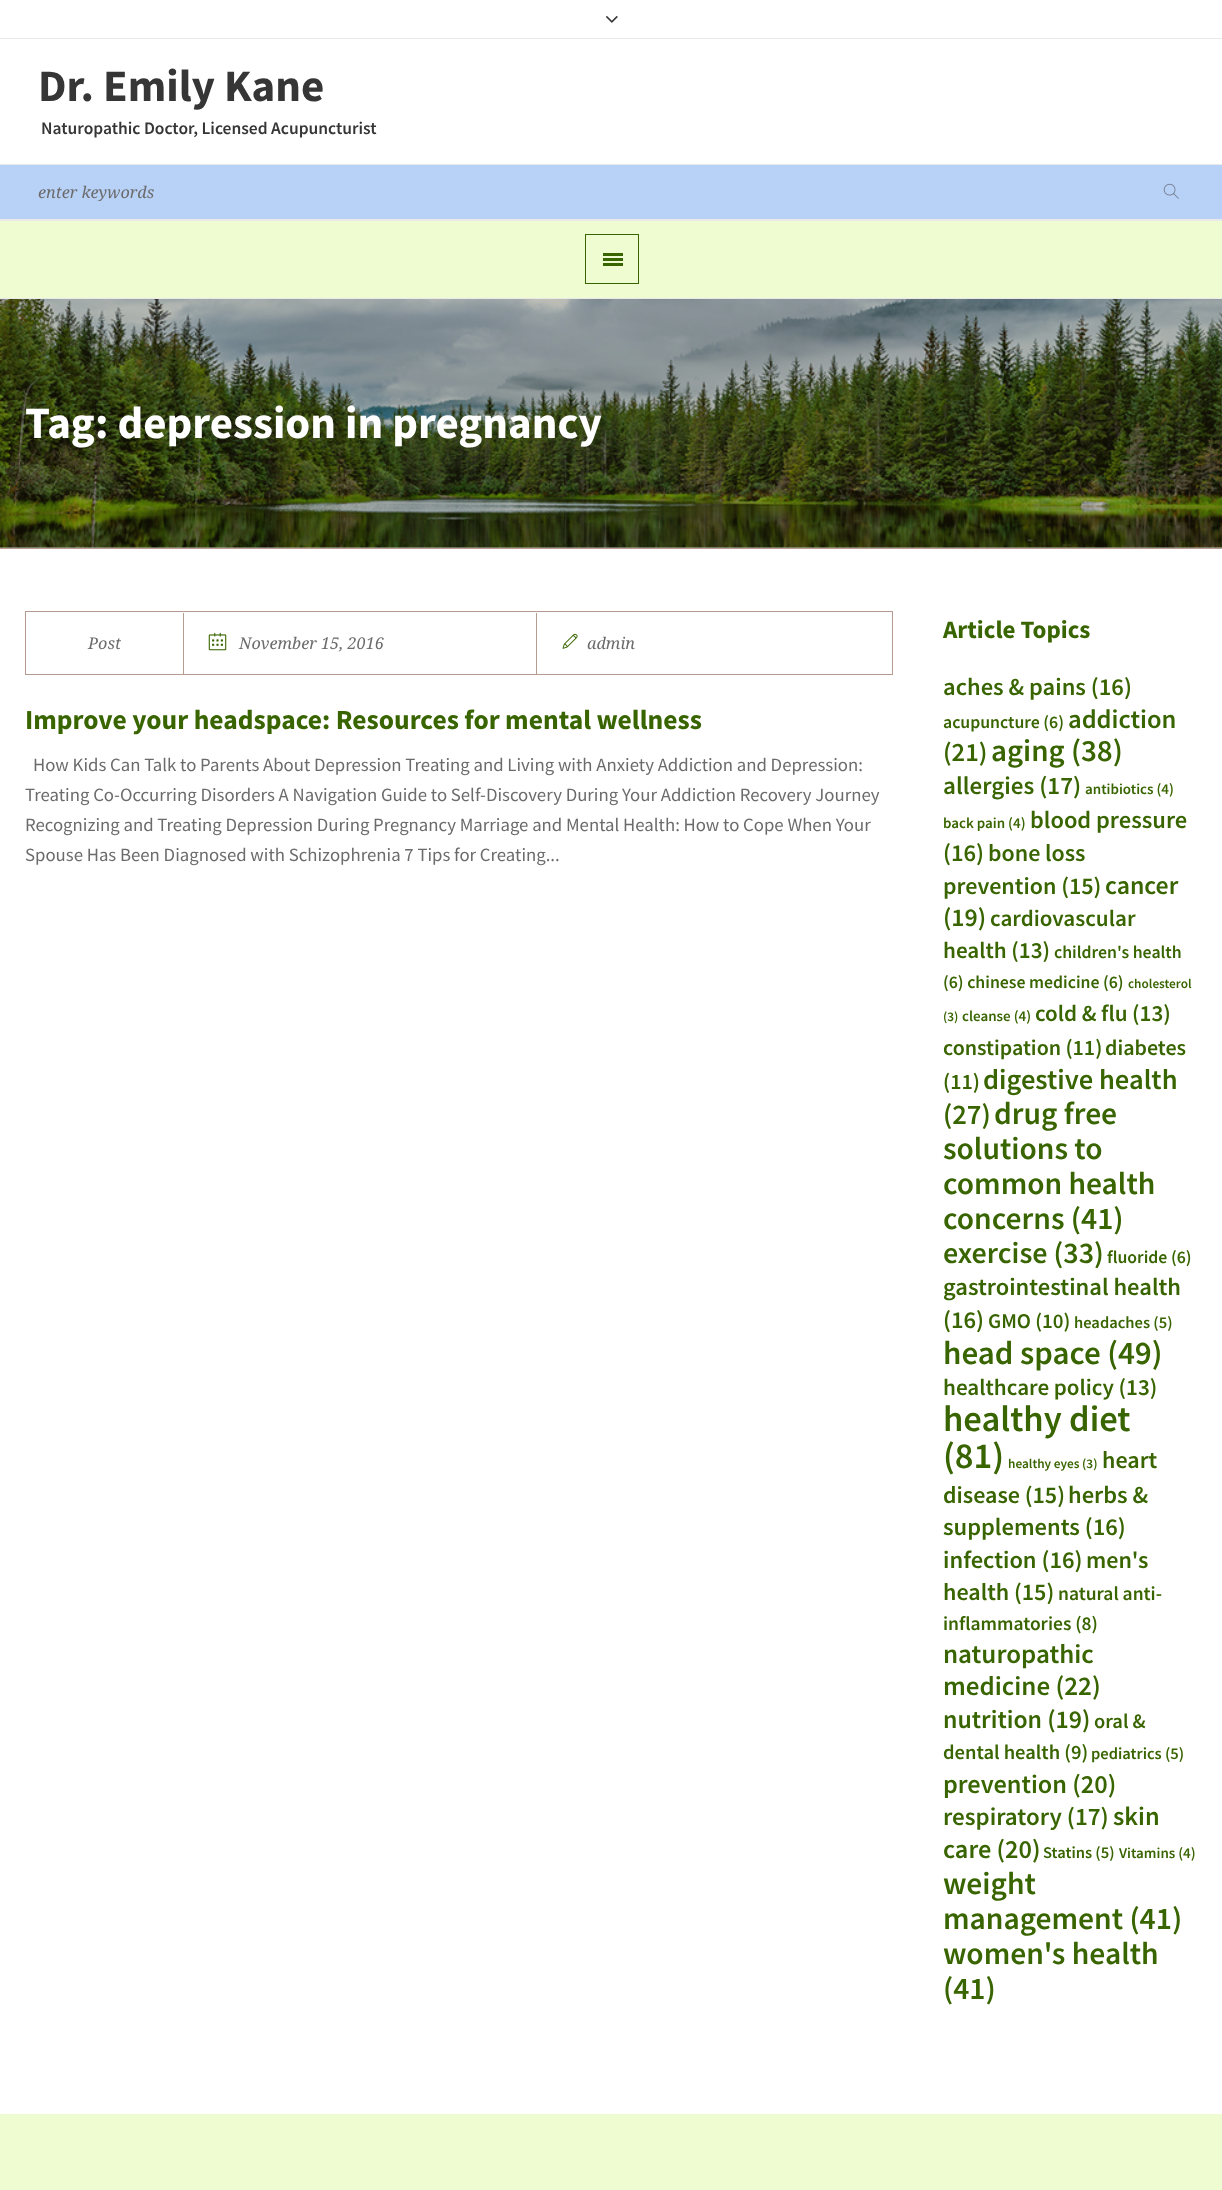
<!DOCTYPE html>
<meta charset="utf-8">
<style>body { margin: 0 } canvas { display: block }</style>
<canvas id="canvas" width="1222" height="2190"></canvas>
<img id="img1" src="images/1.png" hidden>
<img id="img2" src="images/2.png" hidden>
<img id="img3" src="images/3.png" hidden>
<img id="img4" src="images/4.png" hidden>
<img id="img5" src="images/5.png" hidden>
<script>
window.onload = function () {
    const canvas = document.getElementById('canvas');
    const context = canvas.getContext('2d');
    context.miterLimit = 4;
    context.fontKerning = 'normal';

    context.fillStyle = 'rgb(255, 255, 255)';
    context.fillRect(0, 0, 1222, 2190);
    context.fillStyle = 'rgb(233, 233, 233)';
    context.fillRect(0, 38, 1222, 1);
    context.drawImage(document.getElementById('img1'), 606, 16, 12, 7);
    context.fillRect(0, 219, 1222, 2);
    context.fillStyle = 'rgb(184, 209, 247)';
    context.fillRect(0, 165, 1222, 54);
    context.fillStyle = 'rgb(233, 233, 233)';
    context.fillRect(0, 164, 1222, 1);
    context.drawImage(document.getElementById('img2'), 1163, 183, 16, 16);
    context.fillStyle = 'rgb(239, 251, 208)';
    context.fillRect(0, 221, 1222, 77);
    context.fillStyle = 'rgb(233, 233, 233)';
    context.fillRect(0, 298, 1222, 1);
    context.strokeStyle = 'rgb(57, 101, 0)';
    context.strokeRect(585.5, 234.5, 53, 49);
    context.fillStyle = 'rgb(57, 101, 0)';
    context.fillRect(603, 253, 20, 3);
    context.fillRect(603, 263, 20, 3);
    context.fillRect(603, 258, 20, 3);
    context.fillStyle = 'rgb(193, 191, 181)';
    context.fillRect(0, 547, 1222, 1);
    context.drawImage(document.getElementById('img3'), 0, 299, 1222, 249);
    context.fillStyle = 'rgb(184, 155, 144)';
    context.fillRect(0, 548, 1222, 1);
    context.strokeStyle = 'rgb(184, 155, 144)';
    context.strokeRect(25.5, 611.5, 867, 63);
    context.fillRect(183, 613, 1, 61);
    context.fillRect(536, 613, 1, 61);
    context.drawImage(document.getElementById('img4'), 208, 632, 19, 19);
    context.drawImage(document.getElementById('img5'), 562, 633, 16, 16);
    context.fillStyle = 'rgb(239, 251, 208)';
    context.fillRect(0, 2114, 1222, 76);
    context.font = 'bold 45px Source Sans Pro';
    context.fillStyle = 'rgb(54, 54, 54)';
    context.fillText('Dr. Emily Kane', 38, 101);
    context.font = '600 17.5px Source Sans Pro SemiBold';
    context.fillText('Naturopathic Doctor, Licensed Acupuncturist', 41, 134);
    context.save();
    context.beginPath();
    context.rect(38, 183, 1142, 18);
    context.clip();
    context.font = 'italic 16.25px Droid Serif';
    context.fillStyle = 'rgb(107, 107, 107)';
    context.fillText('enter keywords', 38, 198);
    context.restore();
    context.font = 'bold 45px Source Sans Pro';
    context.fillStyle = 'rgb(255, 255, 255)';
    context.fillText('Tag: depression in pregnancy', 25, 438);
    context.font = 'italic 16.25px Droid Serif';
    context.fillStyle = 'rgb(107, 107, 107)';
    context.fillText('Post', 88, 649);
    context.fillText('November 15, 2016', 239, 649);
    context.fillText('admin', 587, 649);
    context.font = 'bold 27.5px Source Sans Pro';
    context.fillStyle = 'rgb(57, 101, 0)';
    context.fillText('Improve your headspace: Resources for mental wellness', 25, 729);
    context.font = '18.75px Source Sans Pro';
    context.fillStyle = 'rgb(107, 107, 107)';
    context.fillText('How Kids Can Talk to Parents About Depression Treating and Living with Anxiety Addiction and Depression:', 33, 771);
    context.fillText('Treating Co-Occurring Disorders A Navigation Guide to Self-Discovery During Your Addiction Recovery Journey', 25, 801);
    context.fillText('Recognizing and Treating Depression During Pregnancy Marriage and Mental Health: How to Cope When Your', 25, 831);
    context.fillText('Spouse Has Been Diagnosed with Schizophrenia 7 Tips for Creating...', 25, 861);
    context.font = 'bold 25px Source Sans Pro';
    context.fillStyle = 'rgb(57, 101, 0)';
    context.fillText('Article Topics', 943, 638);
    context.font = '600 24.5px Source Sans Pro SemiBold';
    context.fillText('aches & pains (16)', 943, 695);
    context.font = '600 17.75px Source Sans Pro SemiBold';
    context.fillText('acupuncture (6)', 943, 728);
    context.font = '600 26.5px Source Sans Pro SemiBold';
    context.fillText('addiction', 1068, 728);
    context.fillText('(21)', 943, 761);
    context.font = '600 31px Source Sans Pro SemiBold';
    context.fillText('aging (38)', 991, 761);
    context.font = '600 25px Source Sans Pro SemiBold';
    context.fillText('allergies (17)', 943, 794);
    context.font = '600 15px Source Sans Pro SemiBold';
    context.fillText('antibiotics (4)', 1085, 794);
    context.fillText('back pain (4)', 943, 828);
    context.font = '600 24.5px Source Sans Pro SemiBold';
    context.fillText('blood pressure', 1030, 828);
    context.fillText('(16)', 943, 861);
    context.font = '600 24px Source Sans Pro SemiBold';
    context.fillText('bone loss', 988, 861);
    context.fillText('prevention (15)', 943, 894);
    context.font = '600 25.75px Source Sans Pro SemiBold';
    context.fillText('cancer', 1105, 894);
    context.fillText('(19)', 943, 926);
    context.font = '600 23.1px Source Sans Pro SemiBold';
    context.fillText('cardiovascular', 990, 926);
    context.fillText('health (13)', 943, 958);
    context.font = '600 17.75px Source Sans Pro SemiBold';
    context.fillText('children\'s health', 1054, 958);
    context.fillText('(6) chinese medicine (6)', 943, 988);
    context.font = '600 13.25px Source Sans Pro SemiBold';
    context.fillText('cholesterol', 1128, 988);
    context.fillText('(3)', 943, 1021);
    context.font = '600 15px Source Sans Pro SemiBold';
    context.fillText('cleanse (4)', 962, 1021);
    context.font = '600 23.1px Source Sans Pro SemiBold';
    context.fillText('cold & flu (13)', 1035, 1021);
    context.font = '600 22px Source Sans Pro SemiBold';
    context.fillText('constipation (11)', 943, 1055);
    context.fillText('diabetes', 1105, 1055);
    context.fillText('(11)', 943, 1089);
    context.font = '600 28.5px Source Sans Pro SemiBold';
    context.fillText('digestive health', 983, 1089);
    context.fillText('(27)', 943, 1124);
    context.font = '600 31.5px Source Sans Pro SemiBold';
    context.fillText('drug free', 994, 1124);
    context.fillText('solutions to', 943, 1159);
    context.fillText('common health', 943, 1194);
    context.fillText('concerns (41)', 943, 1229);
    context.font = '600 30px Source Sans Pro SemiBold';
    context.fillText('exercise (33)', 943, 1263);
    context.font = '600 17.75px Source Sans Pro SemiBold';
    context.fillText('fluoride (6)', 1107, 1263);
    context.font = '600 24.5px Source Sans Pro SemiBold';
    context.fillText('gastrointestinal health', 943, 1295);
    context.fillText('(16)', 943, 1328);
    context.font = '600 21px Source Sans Pro SemiBold';
    context.fillText('GMO (10)', 988, 1328);
    context.font = '600 16.5px Source Sans Pro SemiBold';
    context.fillText('headaches (5)', 1074, 1328);
    context.font = '600 33px Source Sans Pro SemiBold';
    context.fillText('head space (49)', 943, 1364);
    context.font = '600 23.1px Source Sans Pro SemiBold';
    context.fillText('healthcare policy (13)', 943, 1395);
    context.font = '600 36.5px Source Sans Pro SemiBold';
    context.fillText('healthy diet', 943, 1431);
    context.fillText('(81)', 943, 1468);
    context.font = '600 13.25px Source Sans Pro SemiBold';
    context.fillText('healthy eyes (3)', 1008, 1468);
    context.font = '600 24px Source Sans Pro SemiBold';
    context.fillText('heart', 1102, 1468);
    context.fillText('disease (15)', 943, 1503);
    context.font = '600 24.5px Source Sans Pro SemiBold';
    context.fillText('herbs &', 1068, 1503);
    context.fillText('supplements (16)', 943, 1535);
    context.fillText('infection (16)', 943, 1568);
    context.font = '600 24px Source Sans Pro SemiBold';
    context.fillText('men\'s', 1086, 1568);
    context.fillText('health (15)', 943, 1600);
    context.font = '600 19.5px Source Sans Pro SemiBold';
    context.fillText('natural anti-', 1058, 1600);
    context.fillText('inflammatories (8)', 943, 1630);
    context.font = '600 27px Source Sans Pro SemiBold';
    context.fillText('naturopathic', 943, 1663);
    context.fillText('medicine (22)', 943, 1695);
    context.font = '600 25.75px Source Sans Pro SemiBold';
    context.fillText('nutrition (19)', 943, 1728);
    context.font = '600 20.5px Source Sans Pro SemiBold';
    context.fillText('oral &', 1094, 1728);
    context.fillText('dental health (9)', 943, 1759);
    context.font = '600 16.5px Source Sans Pro SemiBold';
    context.fillText('pediatrics (5)', 1091, 1759);
    context.font = '600 26.25px Source Sans Pro SemiBold';
    context.fillText('prevention (20)', 943, 1793);
    context.font = '600 25px Source Sans Pro SemiBold';
    context.fillText('respiratory (17)', 943, 1825);
    context.font = '600 26.25px Source Sans Pro SemiBold';
    context.fillText('skin', 1113, 1825);
    context.fillText('care (20)', 943, 1858);
    context.font = '600 16.5px Source Sans Pro SemiBold';
    context.fillText('Statins (5)', 1043, 1858);
    context.font = '600 15px Source Sans Pro SemiBold';
    context.fillText('Vitamins (4)', 1119, 1858);
    context.font = '600 31.5px Source Sans Pro SemiBold';
    context.fillText('weight', 943, 1894);
    context.fillText('management (41)', 943, 1929);
    context.fillText('women\'s health', 943, 1964);
    context.fillText('(41)', 943, 1999);
};
</script>
